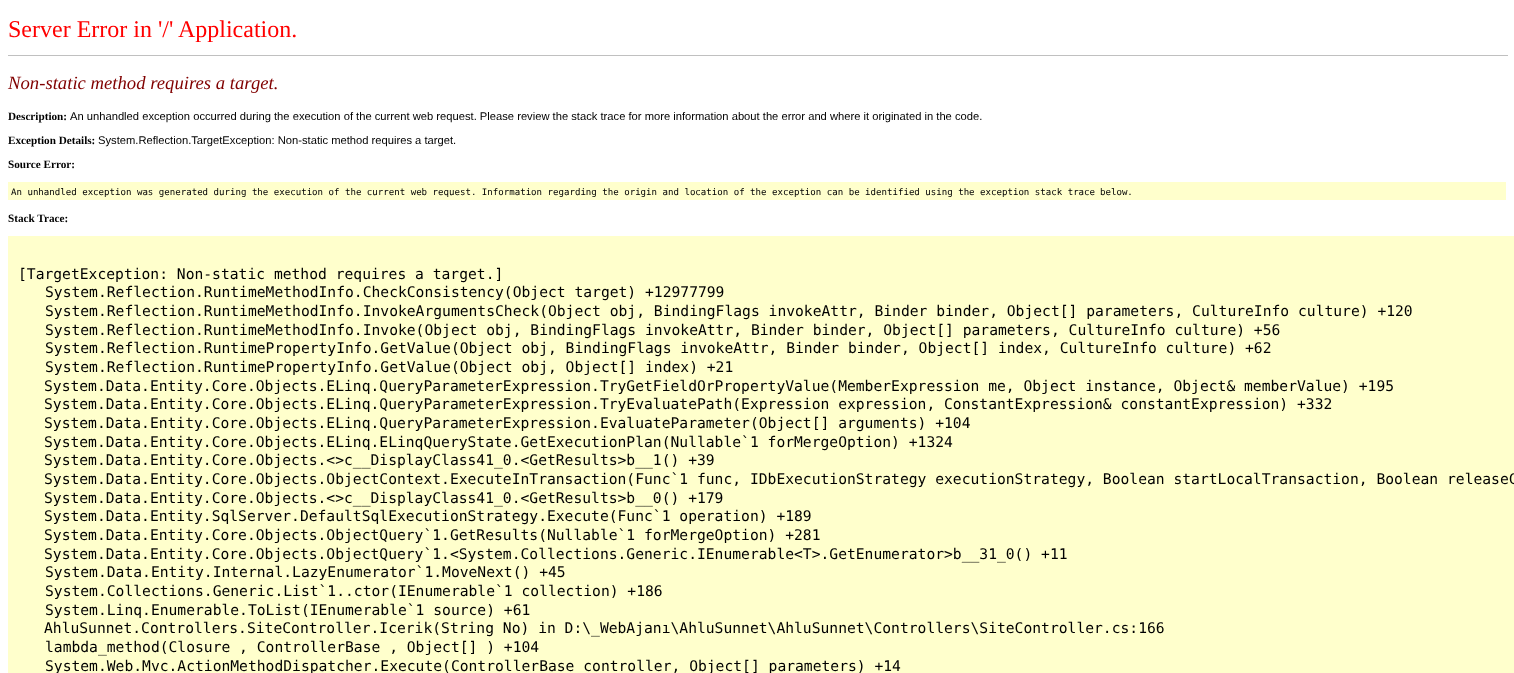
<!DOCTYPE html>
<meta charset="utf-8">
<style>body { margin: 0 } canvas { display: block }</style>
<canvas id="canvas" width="1514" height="673"></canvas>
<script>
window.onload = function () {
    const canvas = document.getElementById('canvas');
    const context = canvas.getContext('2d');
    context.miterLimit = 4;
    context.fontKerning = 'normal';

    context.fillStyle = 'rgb(255, 255, 255)';
    context.fillRect(0, 0, 1514, 673);
    context.fillStyle = 'rgb(192, 192, 192)';
    context.fillRect(8, 55, 1500, 1);
    context.fillStyle = 'rgb(255, 255, 204)';
    context.fillRect(8, 182, 1498, 18);
    context.fillRect(8, 236, 1506, 437);
    context.font = '24px Liberation Serif';
    context.fillStyle = 'rgb(255, 0, 0)';
    context.fillText('Server Error in \'/\' Application.', 8, 37);
    context.font = 'italic 18.7px Liberation Serif';
    context.fillStyle = 'rgb(128, 0, 0)';
    context.fillText('Non-static method requires a target.', 8, 89);
    context.font = 'bold 11.2px Liberation Serif';
    context.fillStyle = 'rgb(0, 0, 0)';
    context.fillText('Description:', 8, 120);
    context.font = '11.2px Liberation Sans';
    context.fillText('An unhandled exception occurred during the execution of the current web request. Please review the stack trace for more information about the error and where it originated in the code.', 70, 120);
    context.font = 'bold 11.2px Liberation Serif';
    context.fillText('Exception Details:', 8, 144);
    context.font = '11.2px Liberation Sans';
    context.fillText('System.Reflection.TargetException: Non-static method requires a target.', 98, 144);
    context.font = 'bold 11.2px Liberation Serif';
    context.fillText('Source Error:', 8, 168);
    context.font = '9.1px DejaVu Sans Mono';
    context.fillText('An unhandled exception was generated during the execution of the current web request. Information regarding the origin and location of the exception can be identified using the exception stack trace', 11, 195);
    context.fillText('below.', 1100, 195);
    context.font = 'bold 11.2px Liberation Serif';
    context.fillText('Stack Trace:', 8, 222);
    context.font = '14.67px DejaVu Sans Mono';
    context.fillText('[TargetException: Non-static method requires a target.]', 18, 279);
    context.fillText('System.Reflection.RuntimeMethodInfo.CheckConsistency(Object target) +12977799', 45, 297);
    context.fillText('System.Reflection.RuntimeMethodInfo.InvokeArgumentsCheck(Object obj, BindingFlags invokeAttr, Binder binder, Object[] parameters, CultureInfo culture) +120', 45, 316);
    context.fillText('System.Reflection.RuntimeMethodInfo.Invoke(Object obj, BindingFlags invokeAttr, Binder binder, Object[] parameters, CultureInfo culture) +56', 45, 335);
    context.fillText('System.Reflection.RuntimePropertyInfo.GetValue(Object obj, BindingFlags invokeAttr, Binder binder, Object[] index, CultureInfo culture) +62', 45, 353);
    context.fillText('System.Reflection.RuntimePropertyInfo.GetValue(Object obj, Object[] index) +21', 45, 372);
    context.fillText('System.Data.Entity.Core.Objects.ELinq.QueryParameterExpression.TryGetFieldOrPropertyValue(MemberExpression me, Object instance, Object& memberValue) +195', 44, 391);
    context.fillText('System.Data.Entity.Core.Objects.ELinq.QueryParameterExpression.TryEvaluatePath(Expression expression, ConstantExpression& constantExpression) +332', 44, 409);
    context.fillText('System.Data.Entity.Core.Objects.ELinq.QueryParameterExpression.EvaluateParameter(Object[] arguments) +104', 44, 428);
    context.fillText('System.Data.Entity.Core.Objects.ELinq.ELinqQueryState.GetExecutionPlan(Nullable`1 forMergeOption) +1324', 44, 447);
    context.fillText('System.Data.Entity.Core.Objects.<>c__DisplayClass41_0.<GetResults>b__1() +39', 44, 465);
    context.fillText('System.Data.Entity.Core.Objects.ObjectContext.ExecuteInTransaction(Func`1 func, IDbExecutionStrategy executionStrategy, Boolean startLocalTransaction, Boolean releaseC', 44, 484);
    context.fillText('System.Data.Entity.Core.Objects.<>c__DisplayClass41_0.<GetResults>b__0() +179', 44, 503);
    context.fillText('System.Data.Entity.SqlServer.DefaultSqlExecutionStrategy.Execute(Func`1 operation) +189', 44, 521);
    context.fillText('System.Data.Entity.Core.Objects.ObjectQuery`1.GetResults(Nullable`1 forMergeOption) +281', 44, 540);
    context.fillText('System.Data.Entity.Core.Objects.ObjectQuery`1.<System.Collections.Generic.IEnumerable<T>.GetEnumerator>b__31_0() +11', 44, 559);
    context.fillText('System.Data.Entity.Internal.LazyEnumerator`1.MoveNext() +45', 45, 577);
    context.fillText('System.Collections.Generic.List`1..ctor(IEnumerable`1 collection) +186', 45, 596);
    context.fillText('System.Linq.Enumerable.ToList(IEnumerable`1 source) +61', 45, 615);
    context.fillText('AhluSunnet.Controllers.SiteController.Icerik(String No) in D:\\_WebAjanı\\AhluSunnet\\AhluSunnet\\Controllers\\SiteController.cs:166', 44, 633);
    context.fillText('lambda_method(Closure , ControllerBase , Object[] ) +104', 45, 652);
    context.fillText('System.Web.Mvc.ActionMethodDispatcher.Execute(ControllerBase controller, Object[] parameters) +14', 45, 671);
};
</script>
